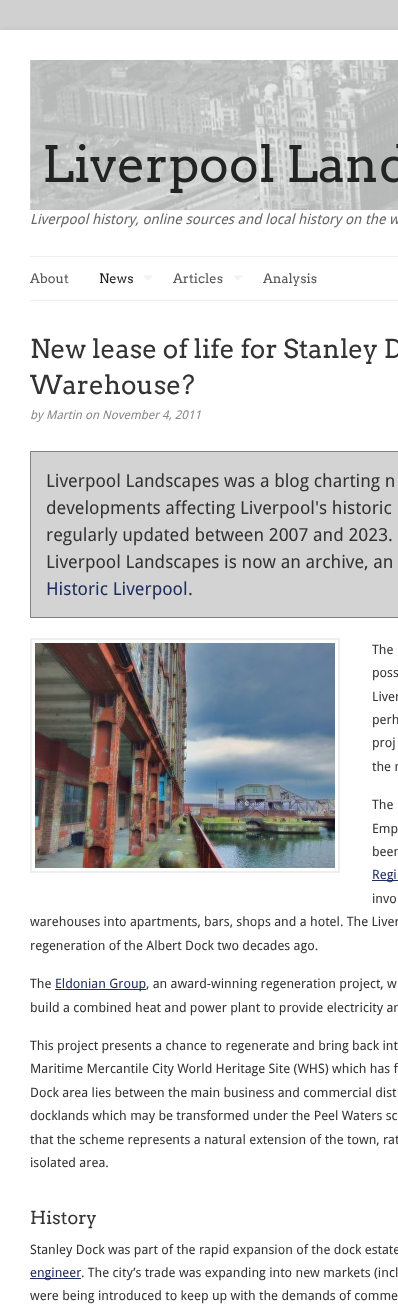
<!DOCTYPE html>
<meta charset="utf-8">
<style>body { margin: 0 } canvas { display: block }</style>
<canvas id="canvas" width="398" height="1312"></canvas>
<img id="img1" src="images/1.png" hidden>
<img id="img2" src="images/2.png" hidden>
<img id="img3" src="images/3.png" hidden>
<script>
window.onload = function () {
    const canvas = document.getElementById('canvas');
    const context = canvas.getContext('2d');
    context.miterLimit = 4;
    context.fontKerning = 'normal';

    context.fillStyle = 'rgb(208, 208, 208)';
    context.fillRect(0, 0, 398, 1312);
    context.fillStyle = 'rgba(100, 100, 100, 0.3)';
    context.filter = 'blur(3px)';
    context.beginPath();
    context.rect(0, 32, 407, 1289);
    context.fill();
    context.filter = 'none';
    context.fillStyle = 'rgb(255, 255, 255)';
    context.fillRect(0, 30, 398, 1282);
    context.drawImage(document.getElementById('img1'), 30, 60, 368, 150);
    context.fillStyle = 'rgb(239, 239, 239)';
    context.fillRect(30, 256, 368, 1);
    context.fillRect(30, 300, 368, 1);
    context.drawImage(document.getElementById('img2'), 143, 275, 10, 5);
    context.drawImage(document.getElementById('img2'), 233, 275, 10, 5);
    context.fillStyle = 'rgb(211, 211, 211)';
    context.beginPath();
    context.rect(30.5, 451.5, 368, 166);
    context.fill();
    context.strokeStyle = 'rgb(128, 128, 128)';
    context.stroke();
    context.strokeStyle = 'rgb(238, 238, 238)';
    context.lineWidth = 2;
    context.strokeRect(31, 639, 308, 233);
    context.drawImage(document.getElementById('img3'), 35, 643, 300, 225);
    context.fillStyle = 'rgb(31, 45, 97)';
    context.fillRect(372, 880, 26, 1);
    context.fillRect(55, 989, 91, 1);
    context.fillRect(30, 1278, 51, 1);
    context.font = 'italic 14px Droid Sans';
    context.fillStyle = 'rgb(102, 102, 102)';
    context.fillText('Liverpool history, online sources and local history on the w', 30, 224);
    context.font = '13px Arvo';
    context.fillStyle = 'rgb(85, 85, 85)';
    context.fillText('About', 30, 283);
    context.fillStyle = 'rgb(34, 34, 34)';
    context.fillText('News', 99, 283);
    context.fillStyle = 'rgb(85, 85, 85)';
    context.fillText('Articles', 173, 283);
    context.fillText('Analysis', 263, 283);
    context.font = '26px Arvo';
    context.fillStyle = 'rgb(51, 51, 51)';
    context.fillText('New lease of life for Stanley D', 30, 358);
    context.fillText('Warehouse?', 30, 394);
    context.font = 'italic 12px Droid Sans';
    context.fillStyle = 'rgb(136, 136, 136)';
    context.fillText('by Martin on November 4, 2011', 30, 419);
    context.font = '18px Droid Sans';
    context.fillStyle = 'rgb(51, 51, 51)';
    context.fillText('Liverpool Landscapes was a blog charting n', 46, 487);
    context.fillText('developments affecting Liverpool\'s historic', 46, 514);
    context.fillText('regularly updated between 2007 and 2023.', 46, 541);
    context.fillText('Liverpool Landscapes is now an archive, an', 46, 568);
    context.fillStyle = 'rgb(31, 45, 97)';
    context.fillText('Historic Liverpool', 46, 595);
    context.fillStyle = 'rgb(51, 51, 51)';
    context.fillText('.', 188, 595);
    context.font = '13px Droid Sans';
    context.fillText('The', 372, 654);
    context.fillText('poss', 372, 677);
    context.fillText('Liver', 372, 701);
    context.fillText('perh', 372, 724);
    context.fillText('proj', 372, 747);
    context.fillText('the n', 372, 771);
    context.fillText('The', 372, 809);
    context.fillText('Emp', 372, 833);
    context.fillText('been', 372, 856);
    context.fillStyle = 'rgb(31, 45, 97)';
    context.fillText('Regi', 372, 879);
    context.fillStyle = 'rgb(51, 51, 51)';
    context.fillText('invo', 372, 903);
    context.fillText('warehouses into apartments, bars, shops and a hotel. The Liver', 30, 926);
    context.fillText('regeneration of the Albert Dock two decades ago.', 30, 950);
    context.fillText('The', 30, 988);
    context.fillStyle = 'rgb(31, 45, 97)';
    context.fillText('Eldonian Group', 55, 988);
    context.fillStyle = 'rgb(51, 51, 51)';
    context.fillText(', an award-winning regeneration project, w', 146, 988);
    context.fillText('build a combined heat and power plant to provide electricity an', 30, 1012);
    context.fillText('This project presents a chance to regenerate and bring back int', 30, 1050);
    context.fillText('Maritime Mercantile City World Heritage Site (WHS) which has f', 30, 1073);
    context.fillText('Dock area lies between the main business and commercial dist', 30, 1097);
    context.fillText('docklands which may be transformed under the Peel Waters sc', 30, 1120);
    context.fillText('that the scheme represents a natural extension of the town, rat', 30, 1144);
    context.fillText('isolated area.', 30, 1167);
    context.font = '18px Arvo';
    context.fillText('History', 30, 1224);
    context.font = '13px Droid Sans';
    context.fillText('Stanley Dock was part of the rapid expansion of the dock estate', 30, 1254);
    context.fillStyle = 'rgb(31, 45, 97)';
    context.fillText('engineer', 30, 1277);
    context.fillStyle = 'rgb(51, 51, 51)';
    context.fillText('. The city’s trade was expanding into new markets (incl', 81, 1277);
    context.fillText('were being introduced to keep up with the demands of comme', 30, 1300);
};
</script>
